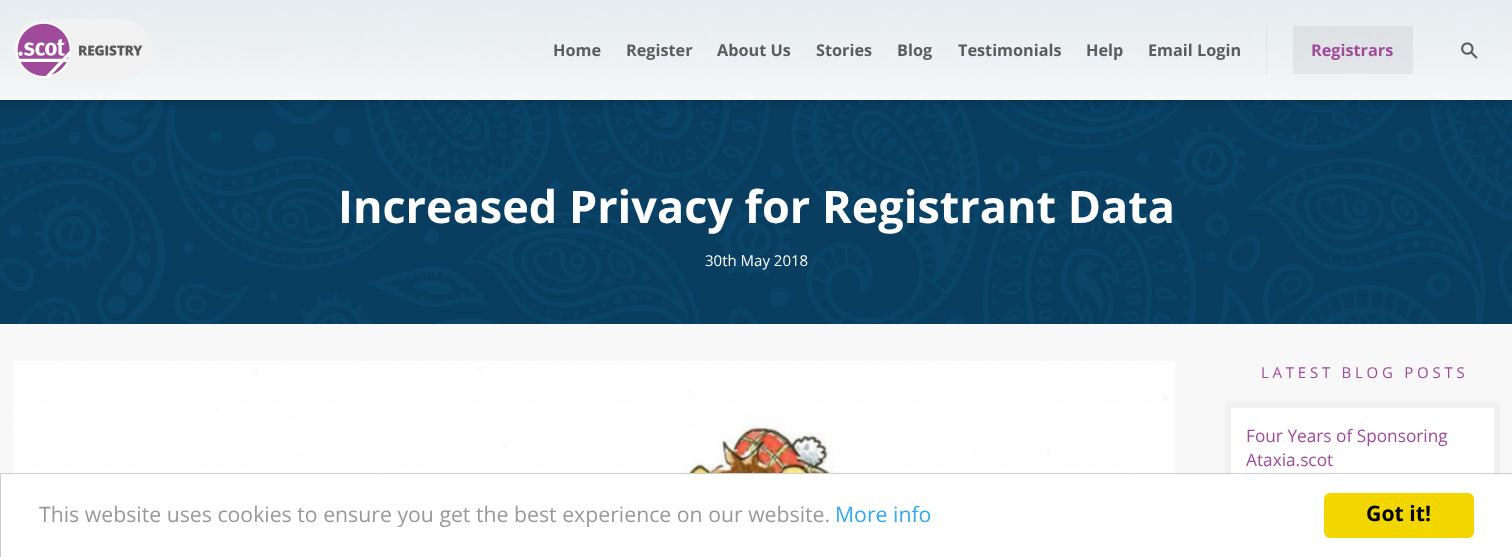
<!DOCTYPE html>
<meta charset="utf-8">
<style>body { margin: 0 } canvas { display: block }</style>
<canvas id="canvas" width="1512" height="557"></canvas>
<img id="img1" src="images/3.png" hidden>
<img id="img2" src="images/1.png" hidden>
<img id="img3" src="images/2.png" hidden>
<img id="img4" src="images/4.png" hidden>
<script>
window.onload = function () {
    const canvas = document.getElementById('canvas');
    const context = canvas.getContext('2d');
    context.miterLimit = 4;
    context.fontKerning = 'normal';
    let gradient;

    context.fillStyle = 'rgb(248, 248, 248)';
    context.fillRect(0, 0, 1512, 557);
    context.fillStyle = 'rgb(9, 62, 96)';
    context.fillRect(0, 0, 1512, 324);
    context.drawImage(document.getElementById('img1'), 0, 0, 1512, 324);
    gradient = context.createLinearGradient(756, 0, 756, 100);
    gradient.addColorStop(0, 'rgba(255, 255, 255, 0.9)');
    gradient.addColorStop(0.6, 'rgba(255, 255, 255, 0.93)');
    gradient.addColorStop(1, 'rgba(255, 255, 255, 0.96)');
    context.fillStyle = gradient;
    context.fillRect(0, 0, 1512, 100);
    context.drawImage(document.getElementById('img2'), 13, 19, 139, 62);
    gradient = context.createLinearGradient(756, 100, 756, 113);
    gradient.addColorStop(0, 'rgba(0, 0, 0, 0.15)');
    gradient.addColorStop(0.3, 'rgba(0, 0, 0, 0.07)');
    gradient.addColorStop(1, 'rgba(0, 0, 0, 0)');
    context.fillStyle = gradient;
    context.fillRect(0, 100, 1512, 10);
    context.fillStyle = 'rgba(0, 0, 0, 0.05)';
    context.fillRect(1266, 26, 1, 48);
    context.fillRect(1293, 26, 120, 48);
    context.drawImage(document.getElementById('img3'), 1461, 42, 17, 17);
    context.drawImage(document.getElementById('img4'), 13, 361, 1162, 112);
    context.fillStyle = 'rgb(241, 241, 241)';
    context.fillRect(1225, 401, 275, 72);
    context.fillStyle = 'rgb(255, 255, 255)';
    context.fillRect(1231, 408, 263, 65);
    context.beginPath();
    context.rect(0.5, 473.5, 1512, 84);
    context.fill();
    context.strokeStyle = 'rgb(204, 204, 204)';
    context.stroke();
    context.fillStyle = 'rgb(241, 214, 0)';
    context.beginPath();
    context.roundRect(1324, 493, 150, 45, 6);
    context.fill();
    context.font = 'bold 16.25px Open Sans';
    context.fillStyle = 'rgb(92, 92, 92)';
    context.fillText('Home', 553, 56);
    context.fillText('Register', 626, 56);
    context.fillText('About Us', 717, 56);
    context.fillText('Stories', 816, 56);
    context.fillText('Blog', 897, 56);
    context.fillText('Testimonials', 958, 56);
    context.fillText('Help', 1086, 56);
    context.fillText('Email Login', 1148, 56);
    context.fillStyle = 'rgb(160, 74, 155)';
    context.fillText('Registrars', 1311, 56);
    context.font = 'bold 45px Open Sans';
    context.fillStyle = 'rgb(255, 255, 255)';
    context.fillText('Increased Privacy for Registrant Data', 338, 223);
    context.font = '15px Open Sans';
    context.fillText('30th May 2018', 705, 266);
    context.letterSpacing = '3.75px';
    context.fillStyle = 'rgb(160, 74, 155)';
    context.fillText('LATEST BLOG POSTS', 1261, 378);
    context.letterSpacing = '0px';
    context.font = '17.25px Open Sans';
    context.fillText('Four Years of Sponsoring', 1246, 442);
    context.fillText('Ataxia.scot', 1246, 466);
    context.font = '21.25px Open Sans';
    context.fillStyle = 'rgb(153, 153, 153)';
    context.fillText('This website uses cookies to ensure you get the best experience on our website.', 39, 522);
    context.fillStyle = 'rgb(49, 168, 240)';
    context.fillText('More info', 835, 522);
    context.font = 'bold 21.25px Open Sans';
    context.fillStyle = 'rgb(0, 0, 0)';
    context.fillText('Got it!', 1366, 521);
};
</script>
